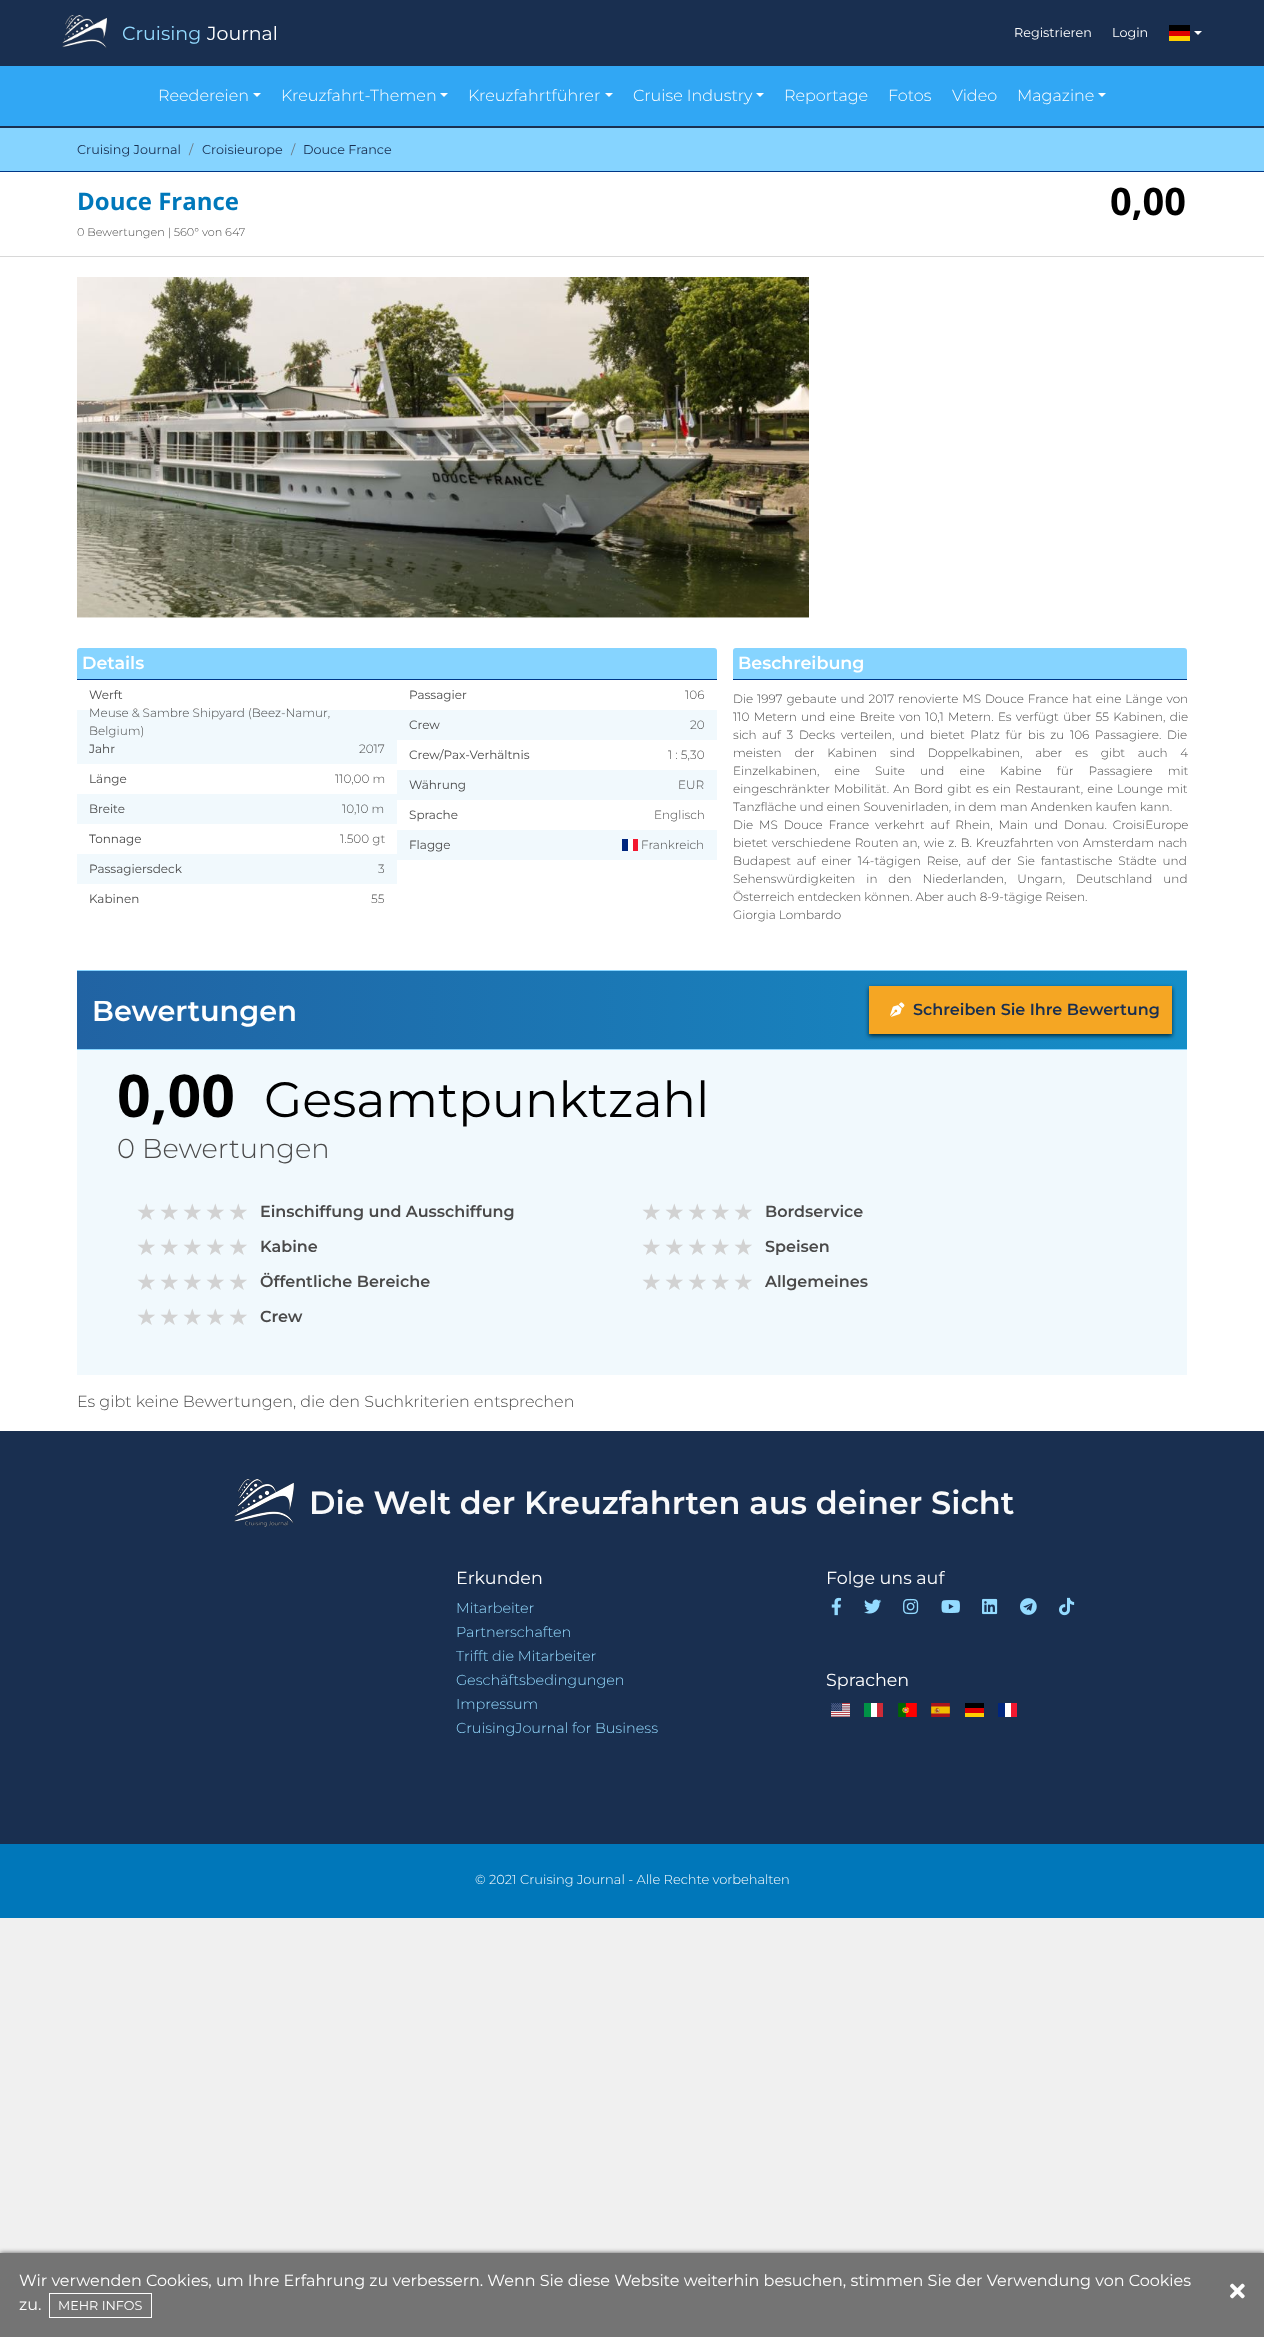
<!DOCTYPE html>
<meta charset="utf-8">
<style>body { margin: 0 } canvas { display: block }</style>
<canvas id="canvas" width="1264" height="2337"></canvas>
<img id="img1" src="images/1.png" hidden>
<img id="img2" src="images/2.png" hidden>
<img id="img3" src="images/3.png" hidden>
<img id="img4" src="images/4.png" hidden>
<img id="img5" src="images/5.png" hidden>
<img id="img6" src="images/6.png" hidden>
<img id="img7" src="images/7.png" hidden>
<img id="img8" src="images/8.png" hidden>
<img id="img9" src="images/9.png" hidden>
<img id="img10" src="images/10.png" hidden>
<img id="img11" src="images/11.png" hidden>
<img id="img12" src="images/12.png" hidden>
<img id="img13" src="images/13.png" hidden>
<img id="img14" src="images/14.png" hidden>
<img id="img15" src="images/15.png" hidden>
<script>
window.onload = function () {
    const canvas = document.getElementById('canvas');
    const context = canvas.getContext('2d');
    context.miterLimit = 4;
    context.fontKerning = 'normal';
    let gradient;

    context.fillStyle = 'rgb(240, 240, 240)';
    context.fillRect(0, 0, 1264, 2337);
    context.fillStyle = 'rgb(25, 47, 80)';
    context.fillRect(0, 0, 1264, 66);
    context.drawImage(document.getElementById('img1'), 62, 15, 45, 34);
    context.fillStyle = 'rgb(255, 206, 0)';
    context.fillRect(1169, 36, 21, 5);
    context.fillStyle = 'rgb(0, 0, 0)';
    context.fillRect(1169, 25, 21, 6);
    context.fillStyle = 'rgb(221, 0, 0)';
    context.fillRect(1169, 31, 21, 5);
    context.fillStyle = 'rgb(255, 255, 255)';
    context.beginPath();
    context.moveTo(1194, 31);
    context.lineTo(1202, 31);
    context.lineTo(1198, 35);
    context.closePath();
    context.fill();
    context.fillStyle = 'rgb(49, 167, 244)';
    context.fillRect(0, 66, 1264, 60);
    context.fillStyle = 'rgb(25, 47, 80)';
    context.fillRect(0, 126, 1264, 2);
    context.fillStyle = 'rgb(255, 255, 255)';
    context.beginPath();
    context.moveTo(253, 93);
    context.lineTo(261, 93);
    context.lineTo(257, 97);
    context.closePath();
    context.fill();
    context.beginPath();
    context.moveTo(440, 93);
    context.lineTo(448, 93);
    context.lineTo(444, 97);
    context.closePath();
    context.fill();
    context.beginPath();
    context.moveTo(605, 93);
    context.lineTo(613, 93);
    context.lineTo(609, 97);
    context.closePath();
    context.fill();
    context.beginPath();
    context.moveTo(756, 93);
    context.lineTo(764, 93);
    context.lineTo(760, 97);
    context.closePath();
    context.fill();
    context.beginPath();
    context.moveTo(1098, 93);
    context.lineTo(1106, 93);
    context.lineTo(1102, 97);
    context.closePath();
    context.fill();
    context.fillRect(0, 172, 1264, 1259);
    context.fillStyle = 'rgb(134, 212, 255)';
    context.fillRect(0, 128, 1264, 43);
    context.fillStyle = 'rgb(0, 55, 135)';
    context.fillRect(0, 171, 1264, 1);
    context.fillStyle = 'rgb(216, 216, 216)';
    context.fillRect(0, 256, 1264, 1);
    context.drawImage(document.getElementById('img2'), 77, 277, 732, 341);
    context.fillStyle = 'rgb(134, 212, 255)';
    context.beginPath();
    context.roundRect(77, 648, 640, 32, [3, 3, 0, 0]);
    context.fill();
    context.fillStyle = 'rgb(0, 55, 135)';
    context.fillRect(77, 679, 640, 1);
    context.fillStyle = 'rgb(241, 249, 253)';
    context.fillRect(77, 710, 320, 54);
    context.fillRect(77, 794, 320, 30);
    context.fillRect(77, 854, 320, 30);
    context.fillRect(397, 710, 320, 30);
    context.fillRect(397, 770, 320, 30);
    context.fillRect(397, 830, 320, 30);
    context.fillStyle = 'rgb(255, 255, 255)';
    context.fillRect(628, 839, 5, 12);
    context.fillStyle = 'rgb(0, 38, 127)';
    context.fillRect(622, 839, 6, 12);
    context.fillStyle = 'rgb(243, 24, 48)';
    context.fillRect(633, 839, 5, 12);
    context.fillStyle = 'rgb(134, 212, 255)';
    context.beginPath();
    context.roundRect(733, 648, 454, 32, [3, 3, 0, 0]);
    context.fill();
    context.fillStyle = 'rgb(0, 55, 135)';
    context.fillRect(733, 679, 454, 1);
    gradient = context.createLinearGradient(77, 1010, 1187, 1010);
    gradient.addColorStop(0, 'rgb(33, 99, 163)');
    gradient.addColorStop(1, 'rgb(20, 142, 200)');
    context.fillStyle = gradient;
    context.fillRect(77, 971, 1110, 78);
    context.fillStyle = 'rgb(134, 212, 255)';
    context.fillRect(77, 970, 1110, 1);
    context.fillRect(77, 1049, 1110, 1);
    context.fillStyle = 'rgb(2, 43, 58)';
    context.filter = 'blur(2px)';
    context.beginPath();
    context.rect(869, 988, 303, 48);
    context.fill();
    context.filter = 'none';
    context.fillStyle = 'rgb(245, 166, 35)';
    context.fillRect(869, 986, 303, 48);
    context.drawImage(document.getElementById('img3'), 890, 1002, 15, 15);
    context.fillStyle = 'rgb(241, 249, 253)';
    context.fillRect(77, 1050, 1110, 325);
    context.fillStyle = 'rgb(25, 47, 80)';
    context.fillRect(0, 1431, 1264, 413);
    context.drawImage(document.getElementById('img4'), 234, 1479, 60, 48);
    context.drawImage(document.getElementById('img5'), 831, 1597, 11, 19);
    context.drawImage(document.getElementById('img6'), 864, 1599, 18, 15);
    context.drawImage(document.getElementById('img7'), 903, 1598, 16, 17);
    context.drawImage(document.getElementById('img8'), 941, 1600, 19, 13);
    context.drawImage(document.getElementById('img9'), 982, 1598, 16, 17);
    context.drawImage(document.getElementById('img10'), 1020, 1598, 17, 17);
    context.drawImage(document.getElementById('img11'), 1059, 1597, 16, 19);
    context.drawImage(document.getElementById('img12'), 831, 1703, 19, 14);
    context.fillStyle = 'rgb(255, 255, 255)';
    context.fillRect(871, 1703, 6, 14);
    context.fillStyle = 'rgb(0, 146, 70)';
    context.fillRect(864, 1703, 7, 14);
    context.fillStyle = 'rgb(206, 43, 55)';
    context.fillRect(877, 1703, 6, 14);
    context.drawImage(document.getElementById('img13'), 898, 1703, 19, 14);
    context.drawImage(document.getElementById('img14'), 931, 1703, 19, 14);
    context.fillStyle = 'rgb(255, 206, 0)';
    context.fillRect(965, 1713, 19, 4);
    context.fillStyle = 'rgb(0, 0, 0)';
    context.fillRect(965, 1703, 19, 5);
    context.fillStyle = 'rgb(221, 0, 0)';
    context.fillRect(965, 1708, 19, 5);
    context.fillStyle = 'rgb(255, 255, 255)';
    context.fillRect(1005, 1703, 6, 14);
    context.fillStyle = 'rgb(0, 38, 127)';
    context.fillRect(998, 1703, 7, 14);
    context.fillStyle = 'rgb(243, 24, 48)';
    context.fillRect(1011, 1703, 6, 14);
    context.fillStyle = 'rgb(0, 119, 186)';
    context.fillRect(0, 1844, 1264, 74);
    context.fillStyle = 'rgb(85, 85, 85)';
    context.filter = 'blur(2.5px)';
    context.beginPath();
    context.rect(0, 2253, 1264, 84);
    context.fill();
    context.filter = 'none';
    context.fillStyle = 'rgb(116, 116, 116)';
    context.fillRect(0, 2253, 1264, 84);
    context.strokeStyle = 'rgb(255, 255, 255)';
    context.strokeRect(49.5, 2293.5, 102, 24);
    context.drawImage(document.getElementById('img15'), 1230, 2283, 15, 16);
    context.font = '19px Montserrat';
    context.fillStyle = 'rgb(148, 219, 255)';
    context.fillText('Cruising', 122, 40);
    context.fillStyle = 'rgb(255, 255, 255)';
    context.fillText('Journal', 207, 40);
    context.font = '12.75px Montserrat';
    context.fillText('Registrieren', 1014, 37);
    context.fillText('Login', 1112, 37);
    context.font = '300 16px Montserrat';
    context.fillText('Reedereien', 158, 101);
    context.fillText('Kreuzfahrt-Themen', 281, 101);
    context.fillText('Kreuzfahrtführer', 468, 101);
    context.fillText('Cruise Industry', 633, 101);
    context.fillText('Reportage', 784, 101);
    context.fillText('Fotos', 888, 101);
    context.fillText('Video', 952, 101);
    context.fillText('Magazine', 1017, 101);
    context.font = '12.75px Montserrat';
    context.fillStyle = 'rgb(25, 47, 80)';
    context.fillText('Cruising Journal', 77, 154);
    context.fillStyle = 'rgb(108, 117, 125)';
    context.fillText('/', 189, 154);
    context.fillStyle = 'rgb(25, 47, 80)';
    context.fillText('Croisieurope', 202, 154);
    context.fillStyle = 'rgb(108, 117, 125)';
    context.fillText('/', 291, 154);
    context.fillStyle = 'rgb(25, 47, 80)';
    context.fillText('Douce France', 303, 154);
    context.font = 'bold 24px Open Sans';
    context.fillStyle = 'rgb(0, 120, 187)';
    context.fillText('Douce France', 77, 210);
    context.font = '300 11.25px Montserrat';
    context.fillStyle = 'rgb(74, 74, 74)';
    context.fillText('0 Bewertungen | 560° von 647', 77, 236);
    context.font = 'bold 38px Open Sans';
    context.fillStyle = 'rgb(0, 0, 0)';
    context.fillText('0,00', 1110, 215);
    context.font = '600 17.5px Montserrat';
    context.fillStyle = 'rgb(255, 255, 255)';
    context.fillText('Details', 82, 669);
    context.font = '12px Montserrat';
    context.fillStyle = 'rgb(74, 74, 74)';
    context.fillText('Werft', 89, 699);
    context.font = '300 12px Montserrat';
    context.fillText('Meuse & Sambre Shipyard (Beez-Namur,', 89, 717);
    context.fillText('Belgium)', 89, 735);
    context.font = '12px Montserrat';
    context.fillText('Jahr', 89, 753);
    context.font = '300 12px Montserrat';
    context.fillText('2017', 359, 753);
    context.font = '12px Montserrat';
    context.fillText('Länge', 89, 783);
    context.font = '300 12px Montserrat';
    context.fillText('110,00 m', 335, 783);
    context.font = '12px Montserrat';
    context.fillText('Breite', 89, 813);
    context.font = '300 12px Montserrat';
    context.fillText('10,10 m', 342, 813);
    context.font = '12px Montserrat';
    context.fillText('Tonnage', 89, 843);
    context.font = '300 12px Montserrat';
    context.fillText('1.500 gt', 340, 843);
    context.font = '12px Montserrat';
    context.fillText('Passagiersdeck', 89, 873);
    context.font = '300 12px Montserrat';
    context.fillText('3', 378, 873);
    context.font = '12px Montserrat';
    context.fillText('Kabinen', 89, 903);
    context.font = '300 12px Montserrat';
    context.fillText('55', 371, 903);
    context.font = '12px Montserrat';
    context.fillText('Passagier', 409, 699);
    context.font = '300 12px Montserrat';
    context.fillText('106', 685, 699);
    context.font = '12px Montserrat';
    context.fillText('Crew', 409, 729);
    context.font = '300 12px Montserrat';
    context.fillText('20', 690, 729);
    context.font = '12px Montserrat';
    context.fillText('Crew/Pax-Verhältnis', 409, 759);
    context.font = '300 12px Montserrat';
    context.fillText('1 : 5,30', 668, 759);
    context.font = '12px Montserrat';
    context.fillText('Währung', 409, 789);
    context.font = '300 12px Montserrat';
    context.fillText('EUR', 678, 789);
    context.font = '12px Montserrat';
    context.fillText('Sprache', 409, 819);
    context.font = '300 12px Montserrat';
    context.fillText('Englisch', 654, 819);
    context.font = '12px Montserrat';
    context.fillText('Flagge', 409, 849);
    context.font = '300 12px Montserrat';
    context.fillText('Frankreich', 641, 849);
    context.font = '600 17.5px Montserrat';
    context.fillStyle = 'rgb(255, 255, 255)';
    context.fillText('Beschreibung', 738, 669);
    context.wordSpacing = '0.75px';
    context.font = '300 12px Montserrat';
    context.fillStyle = 'rgb(74, 74, 74)';
    context.fillText('Die 1997 gebaute und 2017 renovierte MS Douce France hat eine Länge von', 733, 703);
    context.wordSpacing = '1.25px';
    context.fillText('110 Metern und eine Breite von 10,1 Metern. Es verfügt über 55 Kabinen, die', 733, 721);
    context.wordSpacing = '2.5px';
    context.fillText('sich auf 3 Decks verteilen, und bietet Platz für bis zu 106 Passagiere. Die', 733, 739);
    context.wordSpacing = '9.75px';
    context.fillText('meisten der Kabinen sind Doppelkabinen, aber es gibt auch 4', 733, 757);
    context.wordSpacing = '12px';
    context.fillText('Einzelkabinen, eine Suite und eine Kabine für Passagiere mit', 733, 775);
    context.wordSpacing = '1.1px';
    context.fillText('eingeschränkter Mobilität. An Bord gibt es ein Restaurant, eine Lounge mit', 733, 793);
    context.wordSpacing = '0px';
    context.fillText('Tanzfläche und einen Souvenirladen, in dem man Andenken kaufen kann.', 733, 811);
    context.wordSpacing = '2.75px';
    context.fillText('Die MS Douce France verkehrt auf Rhein, Main und Donau. CroisiEurope', 733, 829);
    context.wordSpacing = '0.75px';
    context.fillText('bietet verschiedene Routen an, wie z. B. Kreuzfahrten von Amsterdam nach', 733, 847);
    context.wordSpacing = '2.75px';
    context.fillText('Budapest auf einer 14-tägigen Reise, auf der Sie fantastische Städte und', 733, 865);
    context.wordSpacing = '7.75px';
    context.fillText('Sehenswürdigkeiten in den Niederlanden, Ungarn, Deutschland und', 733, 883);
    context.wordSpacing = '0px';
    context.fillText('Österreich entdecken können. Aber auch 8-9-tägige Reisen.', 733, 901);
    context.fillText('Giorgia Lombardo', 733, 919);
    context.font = '600 28.75px Montserrat';
    context.fillStyle = 'rgb(255, 255, 255)';
    context.fillText('Bewertungen', 92, 1021);
    context.font = '600 16px Montserrat';
    context.fillStyle = 'rgb(25, 47, 80)';
    context.fillText('Schreiben Sie Ihre Bewertung', 913, 1015);
    context.font = 'bold 59px Open Sans';
    context.fillStyle = 'rgb(0, 0, 0)';
    context.fillText('0,00', 117, 1117);
    context.font = '49.5px Montserrat';
    context.fillText('Gesamtpunktzahl', 264, 1117);
    context.font = '300 27.25px Montserrat';
    context.fillStyle = 'rgb(74, 74, 74)';
    context.fillText('0 Bewertungen', 117, 1158);
    context.font = '23px DejaVu Sans';
    context.fillStyle = 'rgb(210, 210, 210)';
    context.fillText('★', 136, 1220);
    context.fillText('★', 159, 1220);
    context.fillText('★', 182, 1220);
    context.fillText('★', 205, 1220);
    context.fillText('★', 228, 1220);
    context.font = '600 16px Montserrat';
    context.fillStyle = 'rgb(74, 74, 74)';
    context.fillText('Einschiffung und Ausschiffung', 260, 1217);
    context.font = '23px DejaVu Sans';
    context.fillStyle = 'rgb(210, 210, 210)';
    context.fillText('★', 136, 1255);
    context.fillText('★', 159, 1255);
    context.fillText('★', 182, 1255);
    context.fillText('★', 205, 1255);
    context.fillText('★', 228, 1255);
    context.font = '600 16px Montserrat';
    context.fillStyle = 'rgb(74, 74, 74)';
    context.fillText('Kabine', 260, 1252);
    context.font = '23px DejaVu Sans';
    context.fillStyle = 'rgb(210, 210, 210)';
    context.fillText('★', 136, 1290);
    context.fillText('★', 159, 1290);
    context.fillText('★', 182, 1290);
    context.fillText('★', 205, 1290);
    context.fillText('★', 228, 1290);
    context.font = '600 16px Montserrat';
    context.fillStyle = 'rgb(74, 74, 74)';
    context.fillText('Öffentliche Bereiche', 260, 1287);
    context.font = '23px DejaVu Sans';
    context.fillStyle = 'rgb(210, 210, 210)';
    context.fillText('★', 136, 1325);
    context.fillText('★', 159, 1325);
    context.fillText('★', 182, 1325);
    context.fillText('★', 205, 1325);
    context.fillText('★', 228, 1325);
    context.font = '600 16px Montserrat';
    context.fillStyle = 'rgb(74, 74, 74)';
    context.fillText('Crew', 260, 1322);
    context.font = '23px DejaVu Sans';
    context.fillStyle = 'rgb(210, 210, 210)';
    context.fillText('★', 641, 1220);
    context.fillText('★', 664, 1220);
    context.fillText('★', 687, 1220);
    context.fillText('★', 710, 1220);
    context.fillText('★', 733, 1220);
    context.font = '600 16px Montserrat';
    context.fillStyle = 'rgb(74, 74, 74)';
    context.fillText('Bordservice', 765, 1217);
    context.font = '23px DejaVu Sans';
    context.fillStyle = 'rgb(210, 210, 210)';
    context.fillText('★', 641, 1255);
    context.fillText('★', 664, 1255);
    context.fillText('★', 687, 1255);
    context.fillText('★', 710, 1255);
    context.fillText('★', 733, 1255);
    context.font = '600 16px Montserrat';
    context.fillStyle = 'rgb(74, 74, 74)';
    context.fillText('Speisen', 765, 1252);
    context.font = '23px DejaVu Sans';
    context.fillStyle = 'rgb(210, 210, 210)';
    context.fillText('★', 641, 1290);
    context.fillText('★', 664, 1290);
    context.fillText('★', 687, 1290);
    context.fillText('★', 710, 1290);
    context.fillText('★', 733, 1290);
    context.font = '600 16px Montserrat';
    context.fillStyle = 'rgb(74, 74, 74)';
    context.fillText('Allgemeines', 765, 1287);
    context.font = '300 16px Montserrat';
    context.fillText('Es gibt keine Bewertungen, die den Suchkriterien entsprechen', 77, 1407);
    context.font = '600 32px Montserrat';
    context.fillStyle = 'rgb(248, 249, 250)';
    context.fillText('Die Welt der Kreuzfahrten aus deiner Sicht', 309, 1514);
    context.font = '17.5px Montserrat';
    context.fillStyle = 'rgb(255, 255, 255)';
    context.fillText('Erkunden', 456, 1584);
    context.font = '300 14.4px Montserrat';
    context.fillStyle = 'rgb(148, 219, 255)';
    context.fillText('Mitarbeiter', 456, 1613);
    context.fillText('Partnerschaften', 456, 1637);
    context.fillText('Trifft die Mitarbeiter', 456, 1661);
    context.fillText('Geschäftsbedingungen', 456, 1685);
    context.fillText('Impressum', 456, 1709);
    context.fillText('CruisingJournal for Business', 456, 1733);
    context.font = '17.5px Montserrat';
    context.fillStyle = 'rgb(255, 255, 255)';
    context.fillText('Folge uns auf', 826, 1584);
    context.fillText('Sprachen', 826, 1686);
    context.font = '300 13px Montserrat';
    context.fillText('© 2021 Cruising Journal - Alle Rechte vorbehalten', 475, 1884);
    context.font = '16px Montserrat';
    context.fillText('Wir verwenden Cookies, um Ihre Erfahrung zu verbessern. Wenn Sie diese Website weiterhin besuchen, stimmen Sie der Verwendung von Cookies', 19, 2286);
    context.fillText('zu.', 19, 2310);
    context.font = '12.75px Montserrat';
    context.fillText('MEHR INFOS', 58, 2310);
};
</script>
